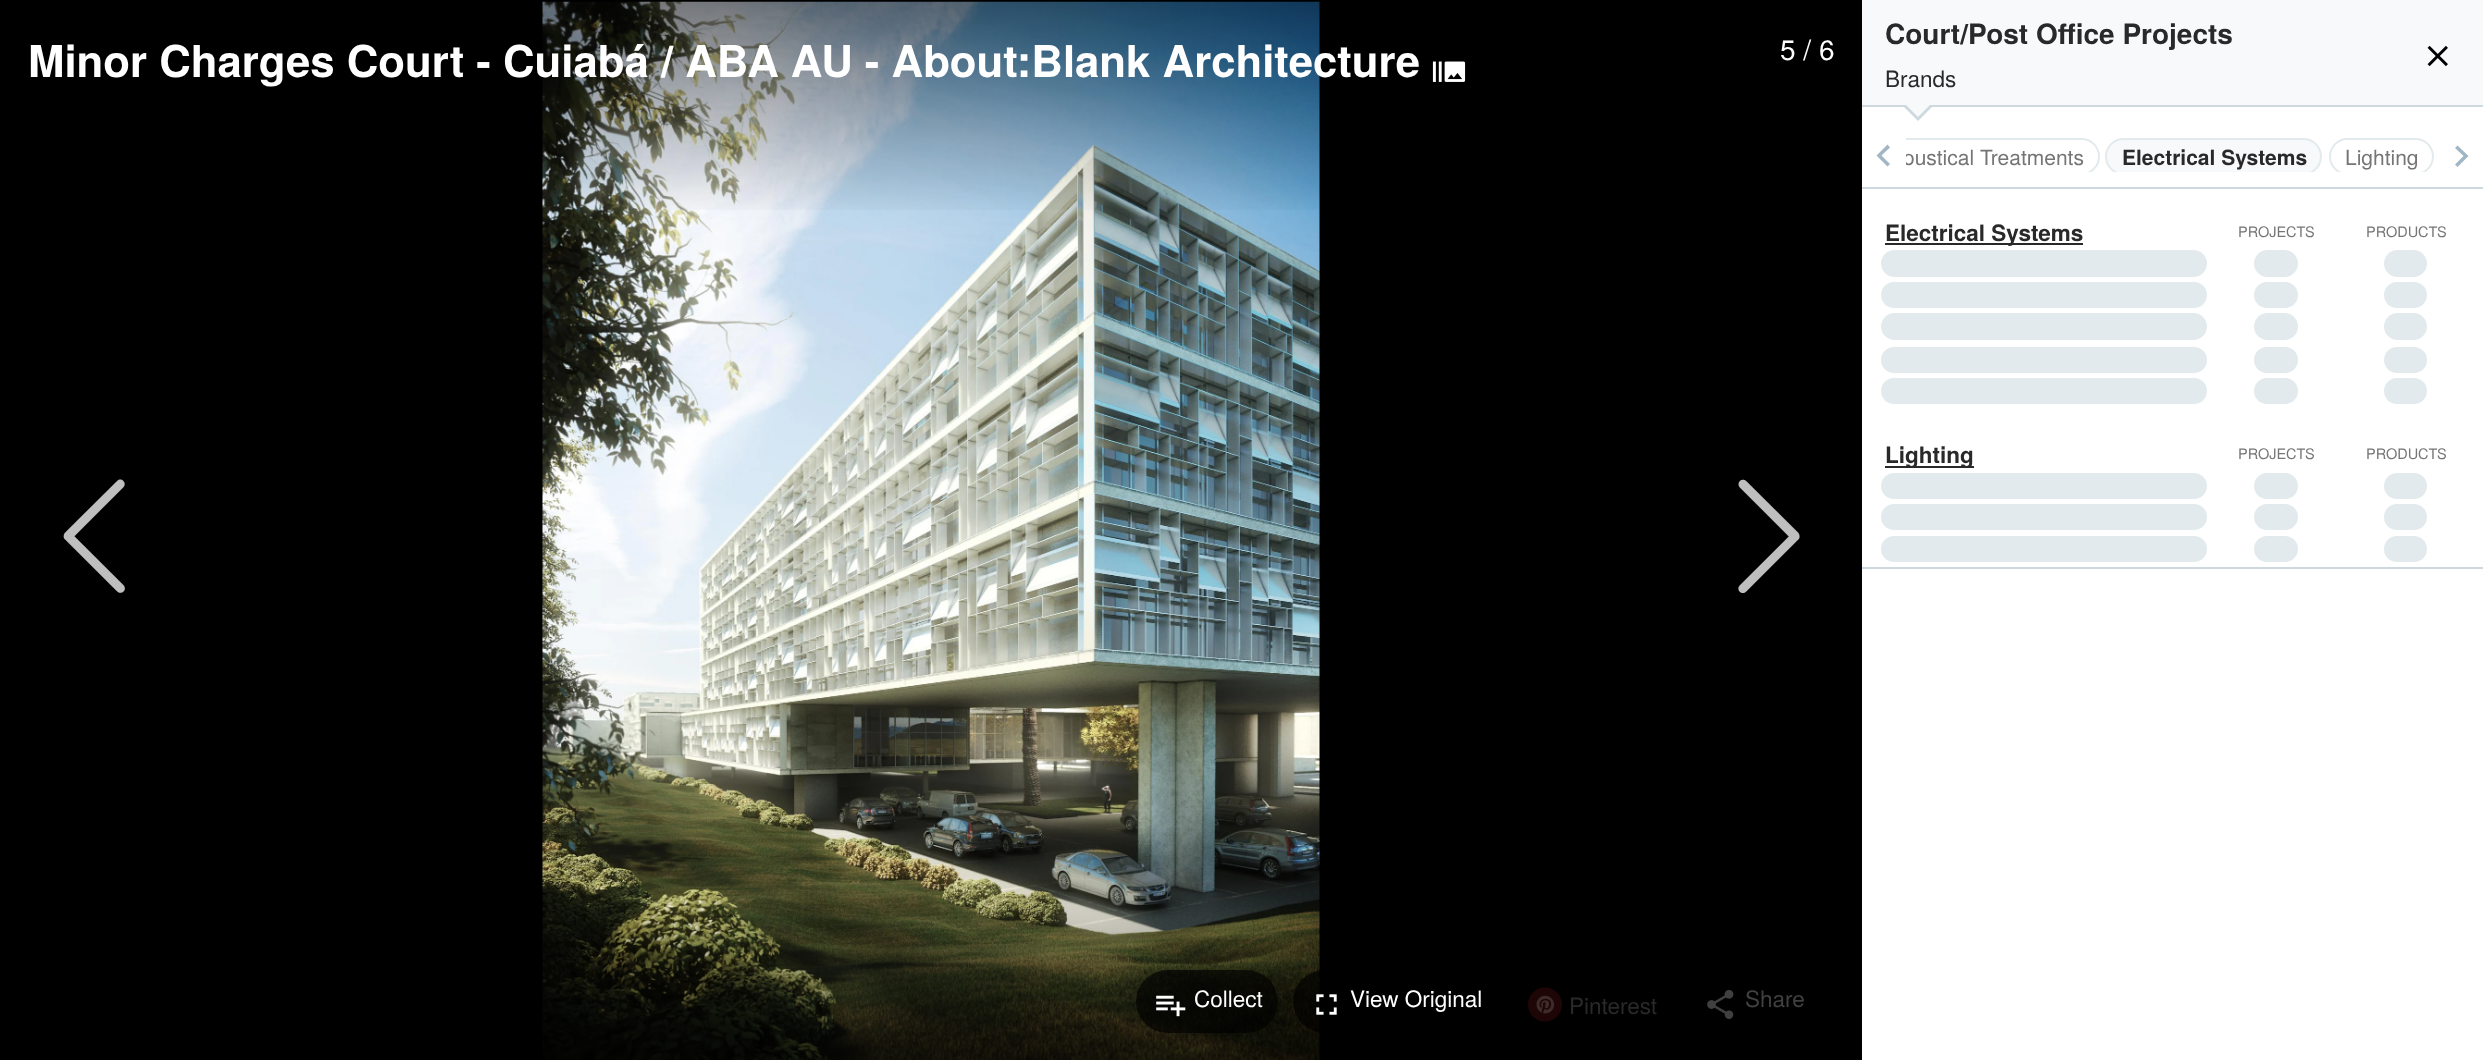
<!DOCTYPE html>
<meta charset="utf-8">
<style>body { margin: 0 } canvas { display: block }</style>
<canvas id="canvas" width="2483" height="1060"></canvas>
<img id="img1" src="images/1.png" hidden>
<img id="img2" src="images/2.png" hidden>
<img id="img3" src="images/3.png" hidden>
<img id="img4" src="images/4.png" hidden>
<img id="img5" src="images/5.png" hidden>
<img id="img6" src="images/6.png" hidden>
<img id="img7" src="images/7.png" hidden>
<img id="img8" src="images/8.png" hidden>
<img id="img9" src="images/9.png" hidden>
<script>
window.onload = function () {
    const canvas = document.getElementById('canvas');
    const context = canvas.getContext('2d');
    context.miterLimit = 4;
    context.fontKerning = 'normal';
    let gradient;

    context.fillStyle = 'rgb(255, 255, 255)';
    context.fillRect(0, 0, 2483, 1060);
    context.fillStyle = 'rgb(0, 0, 0)';
    context.fillRect(0, 0, 1862, 1060);
    context.drawImage(document.getElementById('img1'), 542, 1, 778, 1059);
    gradient = context.createLinearGradient(931, 0, 931, 219);
    gradient.addColorStop(0, 'rgba(0, 0, 0, 0.5)');
    gradient.addColorStop(1, 'rgba(0, 0, 0, 0)');
    context.fillStyle = gradient;
    context.fillRect(542, 1, 778, 209);
    context.drawImage(document.getElementById('img2'), 1432, 61, 34, 21);
    context.drawImage(document.getElementById('img3'), 63, 479, 62, 114);
    context.drawImage(document.getElementById('img4'), 1738, 479, 62, 114);
    gradient = context.createLinearGradient(931, 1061, 931, 886);
    gradient.addColorStop(0, 'rgba(0, 0, 0, 0.5)');
    gradient.addColorStop(1, 'rgba(0, 0, 0, 0)');
    context.fillStyle = gradient;
    context.fillRect(542, 894, 778, 166);
    context.fillStyle = 'rgba(0, 0, 0, 0.65)';
    context.beginPath();
    context.roundRect(1136, 970, 142, 63, 31.5);
    context.fill();
    context.drawImage(document.getElementById('img5'), 1156, 995, 30, 22);
    context.beginPath();
    context.roundRect(1293, 970, 205, 63, 31.5);
    context.fill();
    context.drawImage(document.getElementById('img6'), 1316, 994, 21, 21);
    context.drawImage(document.getElementById('img7'), 1528, 987, 34, 35);
    context.drawImage(document.getElementById('img8'), 1707, 990, 27, 29);
    context.fillStyle = 'rgb(247, 249, 250)';
    context.fillRect(1862, 0, 621, 105);
    context.fillStyle = 'rgb(206, 217, 223)';
    context.fillRect(1862, 105, 621, 2);
    context.beginPath();
    context.moveTo(1902, 105);
    context.lineTo(1934, 105);
    context.lineTo(1918, 121);
    context.closePath();
    context.fill();
    context.fillStyle = 'rgb(247, 249, 250)';
    context.beginPath();
    context.moveTo(1904, 103);
    context.lineTo(1932, 103);
    context.lineTo(1918, 117);
    context.closePath();
    context.fill();
    context.fillStyle = 'rgb(162, 183, 195)';
    context.beginPath();
    context.moveTo(1890, 164);
    context.lineTo(1887.5, 166.5);
    context.lineTo(1876.5, 155.5);
    context.lineTo(1887.5, 144.5);
    context.lineTo(1890, 147.5);
    context.lineTo(1881.5, 155.5);
    context.closePath();
    context.fill();
    context.save();
    context.beginPath();
    context.rect(1906, 128, 534, 44);
    context.clip();
    context.beginPath();
    context.roundRect(1863, 139, 236, 35, 17.5);
    context.strokeStyle = 'rgb(227, 234, 237)';
    context.lineWidth = 2;
    context.stroke();
    context.fillStyle = 'rgb(247, 249, 250)';
    context.beginPath();
    context.roundRect(2106, 139, 215, 35, 17.5);
    context.fill();
    context.stroke();
    context.beginPath();
    context.roundRect(2330, 139, 103, 35, 17.5);
    context.stroke();
    context.restore();
    context.beginPath();
    context.moveTo(2455, 164.5);
    context.lineTo(2463.5, 156);
    context.lineTo(2455, 148);
    context.lineTo(2457.5, 145.5);
    context.lineTo(2468.5, 156);
    context.lineTo(2457.5, 167);
    context.closePath();
    context.fill();
    context.fillStyle = 'rgb(206, 217, 223)';
    context.fillRect(1862, 187, 621, 2);
    context.fillStyle = 'rgb(41, 41, 41)';
    context.fillRect(1885, 243, 198, 2);
    context.fillStyle = 'rgb(227, 234, 237)';
    context.beginPath();
    context.roundRect(1881, 250, 326, 27, 13.5);
    context.fill();
    context.beginPath();
    context.roundRect(2254, 250, 44, 27, 13.5);
    context.fill();
    context.beginPath();
    context.roundRect(2384, 250, 43, 27, 13.5);
    context.fill();
    context.beginPath();
    context.roundRect(1881, 282, 326, 26, 13);
    context.fill();
    context.beginPath();
    context.roundRect(2254, 282, 44, 26, 13);
    context.fill();
    context.beginPath();
    context.roundRect(2384, 282, 43, 26, 13);
    context.fill();
    context.beginPath();
    context.roundRect(1881, 313, 326, 27, 13.5);
    context.fill();
    context.beginPath();
    context.roundRect(2254, 313, 44, 27, 13.5);
    context.fill();
    context.beginPath();
    context.roundRect(2384, 313, 43, 27, 13.5);
    context.fill();
    context.beginPath();
    context.roundRect(1881, 347, 326, 26, 13);
    context.fill();
    context.beginPath();
    context.roundRect(2254, 347, 44, 26, 13);
    context.fill();
    context.beginPath();
    context.roundRect(2384, 347, 43, 26, 13);
    context.fill();
    context.beginPath();
    context.roundRect(1881, 378, 326, 26, 13);
    context.fill();
    context.beginPath();
    context.roundRect(2254, 378, 44, 26, 13);
    context.fill();
    context.beginPath();
    context.roundRect(2384, 378, 43, 26, 13);
    context.fill();
    context.fillStyle = 'rgb(41, 41, 41)';
    context.fillRect(1885, 466, 89, 2);
    context.fillStyle = 'rgb(227, 234, 237)';
    context.beginPath();
    context.roundRect(1881, 473, 326, 26, 13);
    context.fill();
    context.beginPath();
    context.roundRect(2254, 473, 44, 26, 13);
    context.fill();
    context.beginPath();
    context.roundRect(2384, 473, 43, 26, 13);
    context.fill();
    context.beginPath();
    context.roundRect(1881, 504, 326, 26, 13);
    context.fill();
    context.beginPath();
    context.roundRect(2254, 504, 44, 26, 13);
    context.fill();
    context.beginPath();
    context.roundRect(2384, 504, 43, 26, 13);
    context.fill();
    context.beginPath();
    context.roundRect(1881, 536, 326, 26, 13);
    context.fill();
    context.beginPath();
    context.roundRect(2254, 536, 44, 26, 13);
    context.fill();
    context.beginPath();
    context.roundRect(2384, 536, 43, 26, 13);
    context.fill();
    context.fillStyle = 'rgb(206, 217, 223)';
    context.fillRect(1862, 567, 621, 2);
    context.drawImage(document.getElementById('img9'), 2427, 45, 21, 22);
    context.font = '28px TeX Gyre Heros';
    context.fillStyle = 'rgb(255, 255, 255)';
    context.fillText('5 / 6', 1780, 60);
    context.font = 'bold 43.75px TeX Gyre Heros';
    context.fillText('Minor Charges Court - Cuiabá / ABA AU - About:Blank Architecture', 28, 77);
    context.font = '22.5px TeX Gyre Heros';
    context.fillText('Collect', 1194, 1007);
    context.fillText('View Original', 1350, 1007);
    context.fillStyle = 'rgb(41, 41, 41)';
    context.fillText('Pinterest', 1569, 1014);
    context.fillStyle = 'rgb(64, 64, 64)';
    context.fillText('Share', 1745, 1007);
    context.font = 'bold 28px TeX Gyre Heros';
    context.fillStyle = 'rgb(41, 41, 41)';
    context.fillText('Court/Post Office Projects', 1885, 44);
    context.font = '22.5px TeX Gyre Heros';
    context.fillText('Brands', 1885, 87);
    context.save();
    context.beginPath();
    context.rect(1906, 128, 534, 44);
    context.clip();
    context.font = '21px TeX Gyre Heros';
    context.fillStyle = 'rgb(117, 117, 117)';
    context.fillText('oustical Treatments', 1903, 165);
    context.restore();
    context.font = 'bold 21px TeX Gyre Heros';
    context.fillText('Electrical Systems', 2122, 165);
    context.font = '21px TeX Gyre Heros';
    context.fillStyle = 'rgb(117, 117, 117)';
    context.fillText('Lighting', 2345, 165);
    context.font = 'bold 22.5px TeX Gyre Heros';
    context.fillStyle = 'rgb(41, 41, 41)';
    context.fillText('Electrical Systems', 1885, 241);
    context.font = '14.5px TeX Gyre Heros';
    context.fillStyle = 'rgb(117, 117, 117)';
    context.fillText('PROJECTS', 2238, 237);
    context.fillText('PRODUCTS', 2366, 237);
    context.font = 'bold 22.5px TeX Gyre Heros';
    context.fillStyle = 'rgb(41, 41, 41)';
    context.fillText('Lighting', 1885, 463);
    context.font = '14.5px TeX Gyre Heros';
    context.fillStyle = 'rgb(117, 117, 117)';
    context.fillText('PROJECTS', 2238, 459);
    context.fillText('PRODUCTS', 2366, 459);
};
</script>
